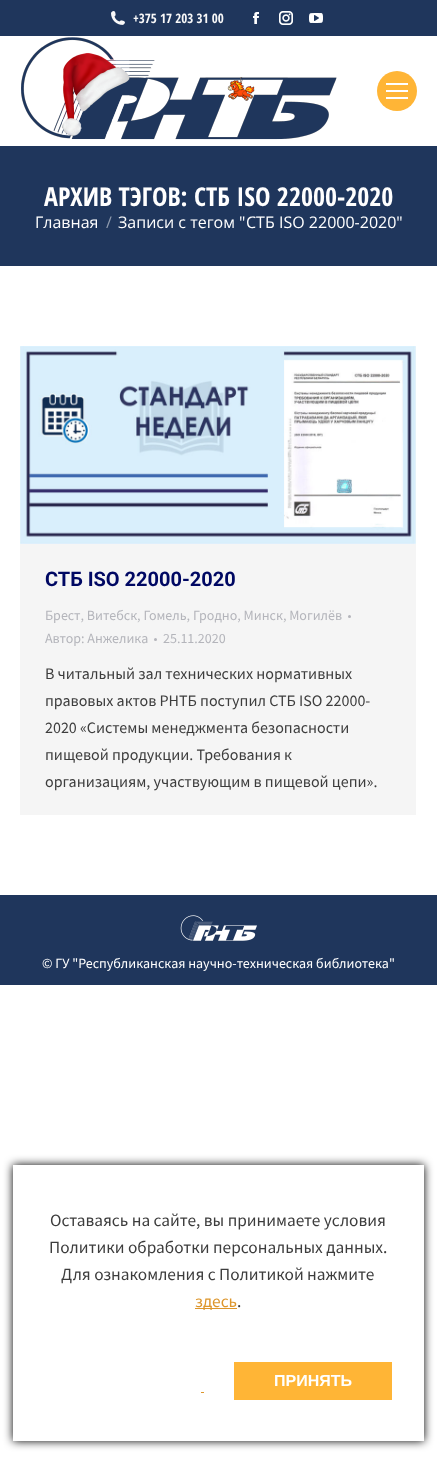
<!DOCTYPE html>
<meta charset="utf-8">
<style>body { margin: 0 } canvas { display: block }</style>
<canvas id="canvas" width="437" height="1457"></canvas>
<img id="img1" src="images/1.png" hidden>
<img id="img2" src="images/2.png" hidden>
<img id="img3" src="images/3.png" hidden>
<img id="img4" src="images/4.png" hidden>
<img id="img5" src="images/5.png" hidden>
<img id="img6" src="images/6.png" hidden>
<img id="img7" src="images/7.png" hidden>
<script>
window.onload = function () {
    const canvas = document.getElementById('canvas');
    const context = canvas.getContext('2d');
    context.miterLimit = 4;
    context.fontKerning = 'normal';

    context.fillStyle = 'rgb(255, 255, 255)';
    context.fillRect(0, 0, 437, 1457);
    context.fillStyle = 'rgb(31, 54, 92)';
    context.fillRect(0, 0, 437, 36);
    context.drawImage(document.getElementById('img1'), 111, 11, 14, 14);
    context.drawImage(document.getElementById('img2'), 253, 12, 6, 12);
    context.drawImage(document.getElementById('img3'), 279, 11, 14, 14);
    context.drawImage(document.getElementById('img4'), 309, 13, 14, 10);
    context.drawImage(document.getElementById('img5'), 21, 37, 316, 103);
    context.fillStyle = 'rgb(255, 181, 54)';
    context.beginPath();
    context.arc(397, 91, 20, 0, 2 * Math.PI);
    context.fill();
    context.fillStyle = 'rgb(255, 255, 255)';
    context.fillRect(386, 83, 22, 2);
    context.fillRect(386, 90, 22, 2);
    context.fillRect(386, 97, 22, 2);
    context.fillStyle = 'rgb(31, 54, 92)';
    context.fillRect(0, 146, 437, 120);
    context.fillStyle = 'rgb(245, 245, 245)';
    context.fillRect(20, 544, 396, 271);
    context.drawImage(document.getElementById('img6'), 20, 346, 396, 198);
    context.fillStyle = 'rgb(180, 181, 187)';
    context.beginPath();
    context.arc(349.5, 616.5, 1.5, 0, 2 * Math.PI);
    context.fill();
    context.beginPath();
    context.arc(155.5, 639.5, 1.5, 0, 2 * Math.PI);
    context.fill();
    context.fillStyle = 'rgb(31, 54, 92)';
    context.fillRect(0, 895, 437, 90);
    context.drawImage(document.getElementById('img7'), 180, 915, 77, 26);
    context.save();
    context.beginPath();
    context.moveTo(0, 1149);
    context.lineTo(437, 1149);
    context.lineTo(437, 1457);
    context.lineTo(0, 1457);
    context.closePath();
    context.moveTo(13, 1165);
    context.lineTo(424, 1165);
    context.lineTo(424, 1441);
    context.lineTo(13, 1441);
    context.closePath();
    context.clip('evenodd');
    context.fillStyle = 'rgb(0, 0, 0)';
    context.filter = 'blur(5px)';
    context.beginPath();
    context.rect(13, 1165, 411, 276);
    context.fill();
    context.filter = 'none';
    context.restore();
    context.fillStyle = 'rgb(221, 150, 44)';
    context.fillRect(195, 1308, 42, 1);
    context.fillStyle = 'rgb(255, 181, 54)';
    context.fillRect(234, 1362, 158, 38);
    context.fillStyle = 'rgb(221, 150, 44)';
    context.fillRect(201, 1392, 3, 1);
    context.font = 'bold 13px Open Sans Condensed';
    context.fillStyle = 'rgb(249, 249, 249)';
    context.fillText('+375 17 203 31 00', 133, 23);
    context.font = 'bold 26px Open Sans Condensed';
    context.fillStyle = 'rgb(255, 255, 255)';
    context.fillText('АРХИВ ТЭГОВ: СТБ ISO 22000-2020', 44, 206);
    context.font = '16px Open Sans';
    context.fillText('Главная', 35, 228);
    context.font = '16px "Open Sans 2"';
    context.fillStyle = 'rgb(143, 155, 174)';
    context.fillText('/', 106, 228);
    context.font = '16px Open Sans';
    context.fillStyle = 'rgb(255, 255, 255)';
    context.fillText('Записи с тегом', 118, 228);
    context.font = '16px "Open Sans 2"';
    context.fillText('"', 239, 228);
    context.font = '16px Open Sans';
    context.fillText('СТБ', 246, 228);
    context.font = '16px "Open Sans 2"';
    context.fillText('ISO 22000-2020"', 279, 228);
    context.font = 'bold 20px Roboto';
    context.fillStyle = 'rgb(0, 8, 99)';
    context.fillText('СТБ ISO 22000-2020', 45, 586);
    context.font = '14px Source Sans Pro';
    context.fillStyle = 'rgb(180, 181, 187)';
    context.fillText('Брест, Витебск, Гомель, Гродно, Минск, Могилёв', 45, 620);
    context.fillText('Автор: Анжелика', 45, 643);
    context.fillText('25.11.2020', 163, 643);
    context.font = '16px Source Sans Pro';
    context.fillStyle = 'rgb(61, 61, 61)';
    context.fillText('В читальный зал технических нормативных', 45, 679);
    context.fillText('правовых актов РНТБ поступил СТБ ISO 22000-', 45, 706);
    context.fillText('2020 «Системы менеджмента безопасности', 45, 733);
    context.fillText('пищевой продукции. Требования к', 45, 760);
    context.fillText('организациям, участвующим в пищевой цепи».', 45, 787);
    context.font = '14px Source Sans Pro';
    context.fillStyle = 'rgb(255, 255, 255)';
    context.fillText('© ГУ "Республиканская научно-техническая библиотека"', 42, 968);
    context.font = '17.3px Source Sans Pro';
    context.fillStyle = 'rgb(61, 61, 61)';
    context.fillText('Оставаясь на сайте, вы принимаете условия', 50, 1226);
    context.fillText('Политики обработки персональных данных.', 49, 1253);
    context.fillText('Для ознакомления с Политикой нажмите', 61, 1280);
    context.fillStyle = 'rgb(221, 150, 44)';
    context.fillText('здесь', 195, 1307);
    context.fillStyle = 'rgb(61, 61, 61)';
    context.fillText('.', 237, 1307);
    context.font = 'bold 16px Liberation Sans';
    context.fillStyle = 'rgb(255, 255, 255)';
    context.fillText('ПРИНЯТЬ', 274, 1386);
};
</script>
